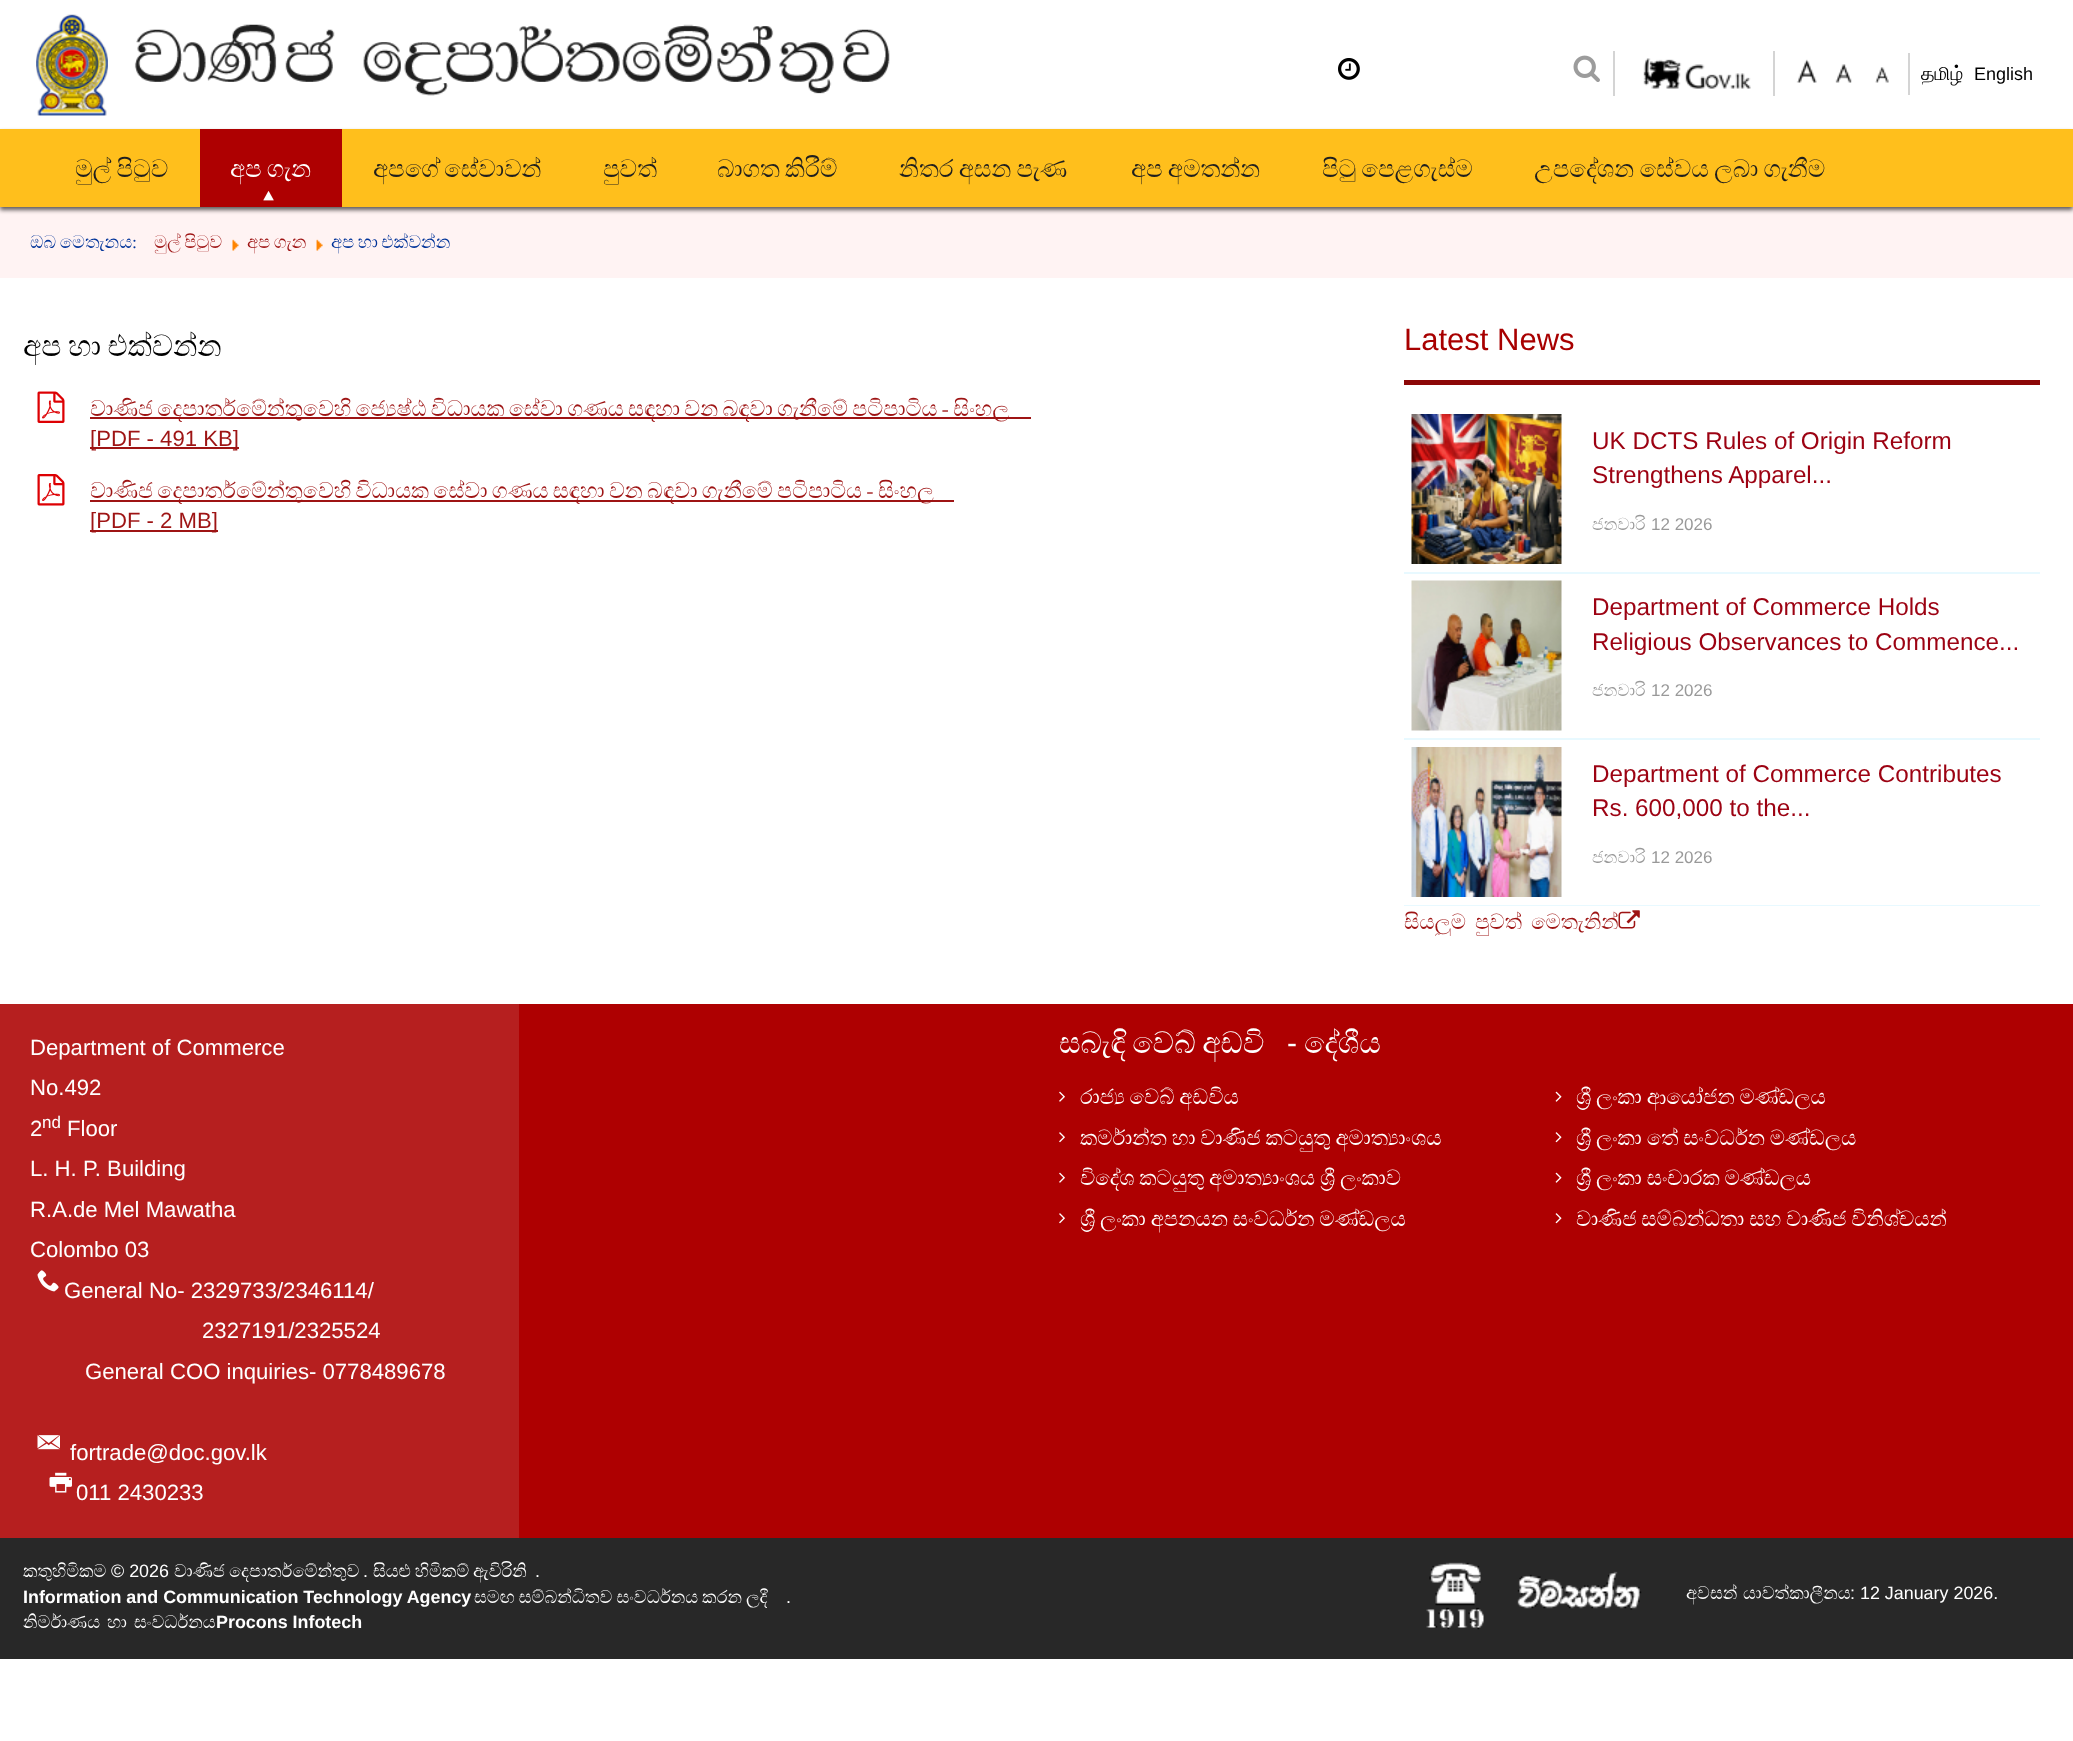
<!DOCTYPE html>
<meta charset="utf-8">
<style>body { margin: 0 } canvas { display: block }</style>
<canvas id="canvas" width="2073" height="1741"></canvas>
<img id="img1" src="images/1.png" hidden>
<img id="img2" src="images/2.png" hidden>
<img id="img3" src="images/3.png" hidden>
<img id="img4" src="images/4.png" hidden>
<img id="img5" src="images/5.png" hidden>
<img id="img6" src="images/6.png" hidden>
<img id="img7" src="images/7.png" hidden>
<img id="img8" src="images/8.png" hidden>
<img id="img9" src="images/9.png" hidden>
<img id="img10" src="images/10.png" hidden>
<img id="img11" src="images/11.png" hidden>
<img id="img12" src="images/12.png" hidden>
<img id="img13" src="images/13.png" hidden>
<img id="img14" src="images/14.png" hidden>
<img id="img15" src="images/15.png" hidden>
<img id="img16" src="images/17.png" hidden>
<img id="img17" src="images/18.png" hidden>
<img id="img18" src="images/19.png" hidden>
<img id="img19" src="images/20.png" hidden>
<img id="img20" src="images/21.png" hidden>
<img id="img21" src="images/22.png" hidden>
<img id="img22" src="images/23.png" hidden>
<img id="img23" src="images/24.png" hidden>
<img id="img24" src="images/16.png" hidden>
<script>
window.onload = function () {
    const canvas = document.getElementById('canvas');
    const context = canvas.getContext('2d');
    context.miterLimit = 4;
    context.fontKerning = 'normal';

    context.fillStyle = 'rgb(255, 255, 255)';
    context.fillRect(0, 0, 2073, 1741);
    context.drawImage(document.getElementById('img1'), 36, 14, 854, 102);
    context.drawImage(document.getElementById('img2'), 1338, 58, 22, 22);
    context.drawImage(document.getElementById('img3'), 1573, 55, 27, 27);
    context.fillStyle = 'rgb(212, 212, 212)';
    context.fillRect(1773, 51, 2, 45);
    context.fillRect(1613, 51, 2, 45);
    context.drawImage(document.getElementById('img4'), 1643, 58, 108, 31);
    context.drawImage(document.getElementById('img5'), 1796, 59, 21, 24);
    context.drawImage(document.getElementById('img6'), 1835, 64, 17, 19);
    context.drawImage(document.getElementById('img7'), 1875, 67, 14, 16);
    context.fillRect(1908, 53, 2, 42);
    context.fillStyle = 'rgb(255, 243, 243)';
    context.fillRect(0, 207, 2073, 71);
    context.fillStyle = 'rgba(0, 0, 0, 0.62)';
    context.filter = 'blur(2px)';
    context.beginPath();
    context.rect(0, 132, 2073, 78);
    context.fill();
    context.filter = 'none';
    context.fillStyle = 'rgb(255, 191, 28)';
    context.fillRect(0, 129, 2073, 78);
    context.fillStyle = 'rgb(174, 0, 1)';
    context.fillRect(200, 129, 142, 78);
    context.drawImage(document.getElementById('img8'), 263, 191, 11, 10);
    context.drawImage(document.getElementById('img9'), 232, 239, 7, 12);
    context.drawImage(document.getElementById('img10'), 316, 239, 7, 12);
    context.drawImage(document.getElementById('img11'), 37, 391, 28, 32);
    context.fillStyle = 'rgb(158, 20, 20)';
    context.fillRect(90, 417, 941, 2);
    context.fillRect(90, 447, 149, 2);
    context.drawImage(document.getElementById('img12'), 37, 474, 28, 32);
    context.fillRect(90, 500, 864, 2);
    context.fillRect(90, 530, 128, 2);
    context.fillStyle = 'rgb(140, 7, 7)';
    context.fillRect(1404, 380, 636, 5);
    context.fillStyle = 'rgb(232, 249, 255)';
    context.fillRect(1404, 572, 636, 2);
    context.drawImage(document.getElementById('img13'), 1411, 414, 151, 150);
    context.fillRect(1404, 738, 636, 2);
    context.drawImage(document.getElementById('img14'), 1411, 580, 151, 151);
    context.fillRect(1404, 905, 636, 1);
    context.drawImage(document.getElementById('img15'), 1411, 747, 151, 150);
    context.fillStyle = 'rgb(174, 0, 1)';
    context.fillRect(519, 1004, 1554, 534);
    context.fillStyle = 'rgb(182, 31, 31)';
    context.fillRect(0, 1004, 519, 534);
    context.drawImage(document.getElementById('img16'), 37, 1270, 22, 22);
    context.drawImage(document.getElementById('img17'), 37, 1435, 23, 15);
    context.drawImage(document.getElementById('img18'), 49, 1472, 23, 21);
    context.drawImage(document.getElementById('img19'), 1059, 1091, 6, 11);
    context.drawImage(document.getElementById('img20'), 1059, 1132, 6, 11);
    context.drawImage(document.getElementById('img19'), 1059, 1172, 6, 11);
    context.drawImage(document.getElementById('img20'), 1059, 1213, 6, 11);
    context.drawImage(document.getElementById('img21'), 1555, 1091, 7, 11);
    context.drawImage(document.getElementById('img22'), 1555, 1132, 7, 11);
    context.drawImage(document.getElementById('img21'), 1555, 1172, 7, 11);
    context.drawImage(document.getElementById('img22'), 1555, 1213, 7, 11);
    context.fillStyle = 'rgb(40, 40, 40)';
    context.fillRect(0, 1538, 2073, 121);
    context.drawImage(document.getElementById('img23'), 1426, 1562, 216, 68);
    context.font = '19.5px FreeSerif';
    context.fillStyle = 'rgb(0, 0, 0)';
    context.fillText('தமிழ்', 1921, 80);
    context.font = '18px Liberation Sans';
    context.fillText('English', 1974, 80);
    context.wordSpacing = '-1px';
    context.font = '24.5px FreeSerif';
    context.fillStyle = 'rgb(31, 31, 31)';
    context.fillText('මුල් පිටුව', 75, 177);
    context.fillStyle = 'rgb(255, 255, 255)';
    context.fillText('අප ගැන', 230, 177);
    context.fillStyle = 'rgb(31, 31, 31)';
    context.fillText('අපගේ සේවාවන්', 373, 177);
    context.wordSpacing = '0px';
    context.fillText('පුවත්', 603, 177);
    context.wordSpacing = '-1px';
    context.fillText('බාගත කිරීම්', 717, 177);
    context.fillText('නිතර අසන පැණ', 899, 177);
    context.fillText('අප අමතන්න', 1131, 177);
    context.fillText('පිටු පෙළගැස්ම', 1322, 177);
    context.fillText('උපදේශන සේවය ලබා ගැනීම', 1534, 177);
    context.font = '18px FreeSerif';
    context.fillStyle = 'rgb(0, 51, 153)';
    context.fillText('ඔබ මෙතැනය:', 30, 248);
    context.fillStyle = 'rgb(158, 20, 20)';
    context.fillText('මුල් පිටුව', 154, 248);
    context.fillText('අප ගැන', 247, 248);
    context.fillStyle = 'rgb(0, 51, 153)';
    context.fillText('අප හා එක්වන්න', 331, 248);
    context.font = '29.75px FreeSerif';
    context.fillStyle = 'rgb(0, 0, 0)';
    context.fillText('අප හා එක්වන්න', 23, 356);
    context.wordSpacing = '-1.25px';
    context.font = '22.15px FreeSerif';
    context.fillStyle = 'rgb(158, 20, 20)';
    context.fillText('වාණිජ දෙපාර්තමේන්තුවෙහි ජ්‍යෙෂ්ඨ විධායක සේවා ගණය සඳහා වන බඳවා ගැනීමේ පටිපාටිය - සිංහල', 90, 416);
    context.wordSpacing = '0px';
    context.font = '22.15px Liberation Sans';
    context.fillText('[PDF - 491 KB]', 90, 446);
    context.wordSpacing = '-1.25px';
    context.font = '22.15px FreeSerif';
    context.fillText('වාණිජ දෙපාර්තමේන්තුවෙහි විධායක සේවා ගණය සඳහා වන බඳවා ගැනීමේ පටිපාටිය - සිංහල', 90, 498);
    context.wordSpacing = '0px';
    context.font = '22.15px Liberation Sans';
    context.fillText('[PDF - 2 MB]', 90, 528);
    context.font = '31px Liberation Sans';
    context.fillStyle = 'rgb(168, 0, 0)';
    context.fillText('Latest News', 1404, 350);
    context.font = '24.25px Liberation Sans';
    context.fillStyle = 'rgb(156, 2, 18)';
    context.fillText('UK DCTS Rules of Origin Reform', 1592, 449);
    context.fillText('Strengthens Apparel...', 1592, 483);
    context.font = '17px FreeSerif';
    context.fillStyle = 'rgb(153, 153, 153)';
    context.fillText('ජනවාරි', 1592, 530);
    context.font = '17px Liberation Sans';
    context.fillText('12 2026', 1651, 530);
    context.font = '24.25px Liberation Sans';
    context.fillStyle = 'rgb(156, 2, 18)';
    context.fillText('Department of Commerce Holds', 1592, 615);
    context.fillText('Religious Observances to Commence...', 1592, 650);
    context.font = '17px FreeSerif';
    context.fillStyle = 'rgb(153, 153, 153)';
    context.fillText('ජනවාරි', 1592, 696);
    context.font = '17px Liberation Sans';
    context.fillText('12 2026', 1651, 696);
    context.font = '24.25px Liberation Sans';
    context.fillStyle = 'rgb(156, 2, 18)';
    context.fillText('Department of Commerce Contributes', 1592, 782);
    context.fillText('Rs. 600,000 to the...', 1592, 816);
    context.font = '17px FreeSerif';
    context.fillStyle = 'rgb(153, 153, 153)';
    context.fillText('ජනවාරි', 1592, 863);
    context.font = '17px Liberation Sans';
    context.fillText('12 2026', 1651, 863);
    context.save();
    context.beginPath();
    context.rect(1404, 300, 636, 636);
    context.clip();
    context.font = '21.25px FreeSerif';
    context.fillStyle = 'rgb(158, 20, 20)';
    context.fillText('සියලුම', 1404, 929);
    context.restore();
    context.font = '21.25px FreeSerif';
    context.fillStyle = 'rgb(158, 20, 20)';
    context.fillText('පුවත්', 1475, 929);
    context.fillText('මෙතැනින්', 1531, 929);
    context.drawImage(document.getElementById('img24'), 1618, 910, 22, 19);
    context.font = '22.15px Liberation Sans';
    context.fillStyle = 'rgb(255, 255, 255)';
    context.fillText('Department of Commerce', 30, 1055);
    context.fillText('No.492', 30, 1095);
    context.fillText('2', 30, 1136);
    context.font = '17px Liberation Sans';
    context.fillText('nd', 42, 1128);
    context.font = '22.15px Liberation Sans';
    context.fillText('Floor', 67, 1136);
    context.fillText('L. H. P. Building', 30, 1176);
    context.fillText('R.A.de Mel Mawatha', 30, 1217);
    context.fillText('Colombo 03', 30, 1257);
    context.fillText('General No- 2329733/2346114/', 64, 1298);
    context.fillText('2327191/2325524', 202, 1338);
    context.fillText('General COO inquiries- 0778489678', 85, 1379);
    context.fillText('fortrade@doc.gov.lk', 70, 1460);
    context.fillText('011 2430233', 76, 1500);
    context.wordSpacing = '-1px';
    context.font = '30px FreeSerif';
    context.fillText('සබැඳි වෙබ් අඩවි', 1059, 1053);
    context.wordSpacing = '0px';
    context.font = '30px Liberation Sans';
    context.fillText('-', 1287, 1053);
    context.font = '30px FreeSerif';
    context.fillText('දේශීය', 1304, 1053);
    context.wordSpacing = '-0.5px';
    context.font = '21.25px FreeSerif';
    context.fillText('රාජ්‍ය වෙබ් අඩවිය', 1080, 1104);
    context.fillText('කර්මාන්ත හා වාණිජ කටයුතු අමාත්‍යාංශය', 1080, 1145);
    context.fillText('විදේශ කටයුතු අමාත්‍යාංශය ශ්‍රී ලංකාව', 1080, 1185);
    context.fillText('ශ්‍රී ලංකා අපනයන සංවර්ධන මණ්ඩලය', 1080, 1226);
    context.fillText('ශ්‍රී ලංකා ආයෝජන මණ්ඩලය', 1576, 1104);
    context.fillText('ශ්‍රී ලංකා තේ සංවර්ධන මණ්ඩලය', 1576, 1145);
    context.fillText('ශ්‍රී ලංකා සංචාරක මණ්ඩලය', 1576, 1185);
    context.fillText('වාණිජ සම්බන්ධතා සහ වාණිජ විනිශ්චයන්', 1576, 1226);
    context.wordSpacing = '0px';
    context.font = '17.9px FreeSerif';
    context.fillText('කතුහිමිකම', 23, 1577);
    context.font = '17.9px Liberation Sans';
    context.fillText('© 2026', 111, 1577);
    context.wordSpacing = '-0.5px';
    context.font = '17.9px FreeSerif';
    context.fillText('වාණිජ දෙපාර්තමේන්තුව', 174, 1577);
    context.wordSpacing = '0px';
    context.font = '17.9px Liberation Sans';
    context.fillText('.', 363, 1577);
    context.wordSpacing = '-0.5px';
    context.font = '17.9px FreeSerif';
    context.fillText('සියළු හිමිකම් ඇවිරිනි', 373, 1577);
    context.wordSpacing = '0px';
    context.font = '17.9px Liberation Sans';
    context.fillText('.', 535, 1577);
    context.font = 'bold 17.9px Liberation Sans';
    context.fillText('Information and Communication Technology Agency', 23, 1603);
    context.wordSpacing = '-0.5px';
    context.font = '17.9px FreeSerif';
    context.fillText('සමඟ සම්බන්ධිතව සංවර්ධනය කරන ලදී', 474, 1603);
    context.wordSpacing = '0px';
    context.font = '17.9px Liberation Sans';
    context.fillText('.', 786, 1603);
    context.font = '17.9px FreeSerif';
    context.fillText('නිර්මාණය', 23, 1628);
    context.fillText('හා', 107, 1628);
    context.fillText('සංවර්ධනය', 134, 1628);
    context.font = 'bold 17.9px Liberation Sans';
    context.fillText('Procons Infotech', 216, 1628);
    context.font = '17.9px FreeSerif';
    context.fillText('අවසන්', 1686, 1599);
    context.fillText('යාවත්කාලීනය', 1743, 1599);
    context.font = '17.9px Liberation Sans';
    context.fillText(': 12 January 2026.', 1850, 1599);
};
</script>
